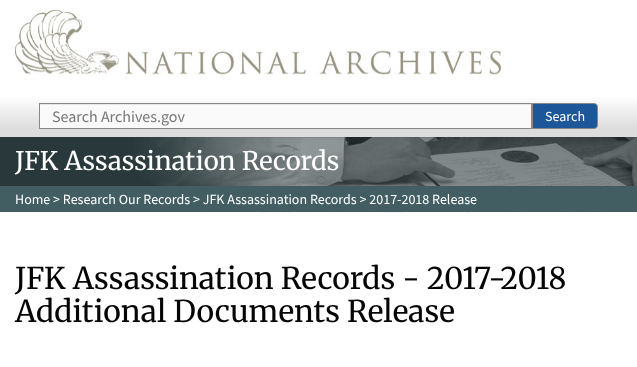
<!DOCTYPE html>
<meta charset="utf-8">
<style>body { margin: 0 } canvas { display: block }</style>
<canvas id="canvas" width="637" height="367"></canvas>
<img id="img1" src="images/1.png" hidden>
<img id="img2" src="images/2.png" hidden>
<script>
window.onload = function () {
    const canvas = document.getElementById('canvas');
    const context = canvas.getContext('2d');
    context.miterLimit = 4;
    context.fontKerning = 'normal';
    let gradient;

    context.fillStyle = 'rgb(255, 255, 255)';
    context.fillRect(0, 0, 637, 367);
    context.drawImage(document.getElementById('img1'), 15, 10, 486, 65);
    gradient = context.createLinearGradient(319, 95, 319, 137);
    gradient.addColorStop(0, 'rgb(255, 255, 255)');
    gradient.addColorStop(0.8, 'rgb(221, 221, 221)');
    context.fillStyle = gradient;
    context.fillRect(0, 97, 637, 40);
    context.fillStyle = 'rgb(250, 250, 250)';
    context.fillRect(40, 105, 491, 23);
    context.fillStyle = 'rgb(231, 231, 231)';
    context.fillRect(40, 104, 491, 1);
    context.strokeStyle = 'rgb(136, 136, 136)';
    context.strokeRect(39.5, 103.5, 492, 25);
    context.fillStyle = 'rgb(30, 87, 153)';
    context.beginPath();
    context.roundRect(532.5, 103.5, 65, 25, [0, 3.5, 3.5, 0]);
    context.fill();
    context.stroke();
    context.fillStyle = 'rgb(41, 57, 59)';
    context.fillRect(0, 137, 637, 49);
    context.drawImage(document.getElementById('img2'), 134, 137, 503, 76);
    context.fillStyle = 'rgb(66, 94, 98)';
    context.fillRect(0, 186, 637, 26);
    context.font = '16px Source Sans Pro';
    context.fillStyle = 'rgb(119, 119, 119)';
    context.fillText('Search Archives.gov', 52, 122);
    context.font = '14px Source Sans Pro';
    context.fillStyle = 'rgb(255, 255, 255)';
    context.fillText('Search', 545, 121);
    context.font = '300 25.6px Merriweather';
    context.fillText('JFK Assassination Records', 15, 170);
    context.font = '14px Source Sans Pro';
    context.fillText('Home > Research Our Records > JFK Assassination Records > 2017-2018 Release', 15, 204);
    context.font = '300 30px Merriweather';
    context.fillStyle = 'rgb(5, 5, 5)';
    context.fillText('JFK Assassination Records - 2017-2018', 15, 289);
    context.fillText('Additional Documents Release', 15, 322);
};
</script>
